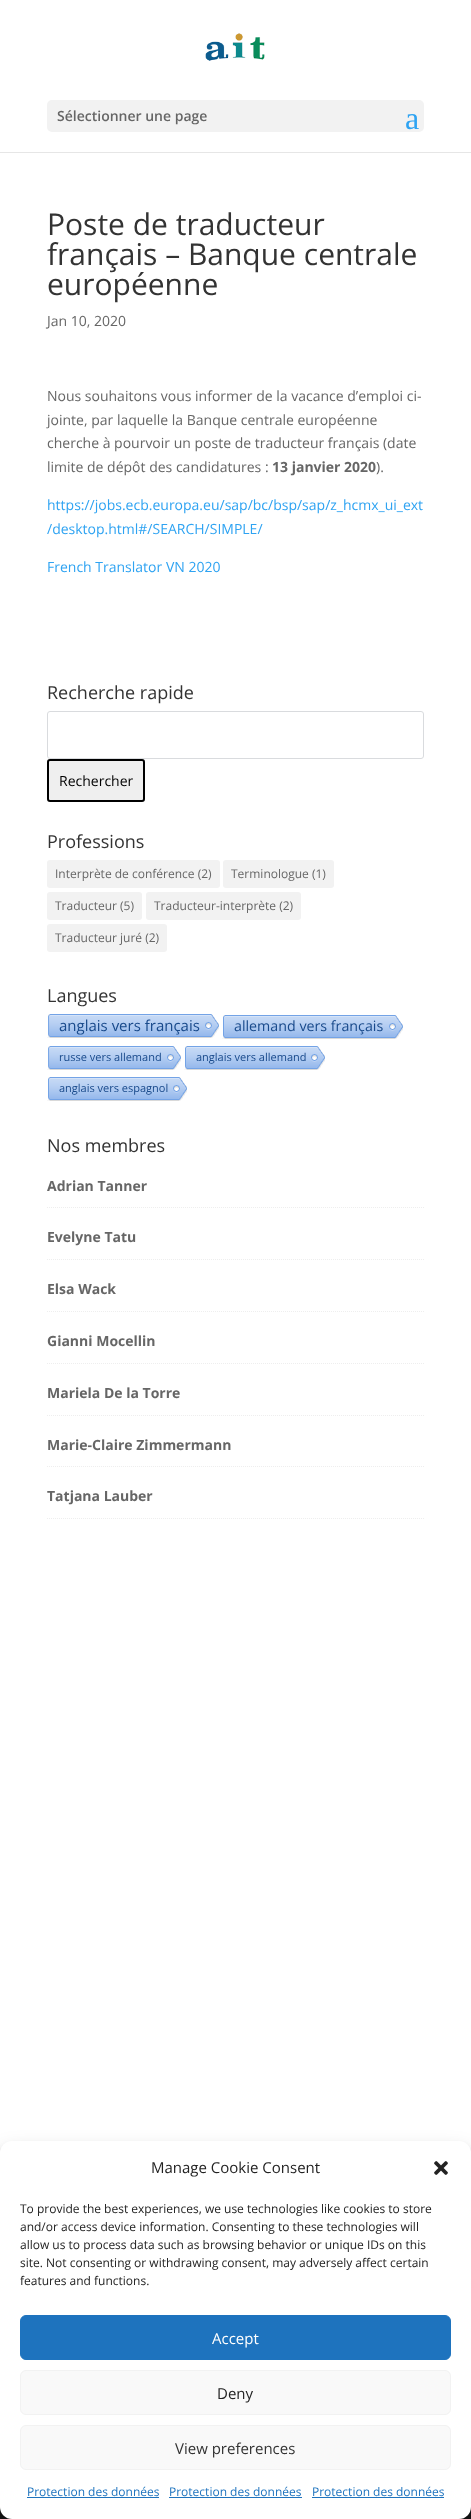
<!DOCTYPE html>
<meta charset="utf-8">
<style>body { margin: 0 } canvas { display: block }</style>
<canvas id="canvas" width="471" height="2519"></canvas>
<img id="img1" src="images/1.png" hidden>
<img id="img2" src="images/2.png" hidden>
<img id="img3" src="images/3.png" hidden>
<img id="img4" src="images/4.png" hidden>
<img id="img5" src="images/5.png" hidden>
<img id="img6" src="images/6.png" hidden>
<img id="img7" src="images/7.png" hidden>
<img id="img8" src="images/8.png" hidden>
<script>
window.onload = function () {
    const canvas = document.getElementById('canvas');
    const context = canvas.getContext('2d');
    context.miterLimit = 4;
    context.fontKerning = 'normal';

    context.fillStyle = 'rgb(255, 255, 255)';
    context.fillRect(0, 0, 471, 2519);
    context.fillStyle = 'rgb(230, 230, 230)';
    context.fillRect(0, 152, 471, 1);
    context.drawImage(document.getElementById('img1'), 205, 33, 60, 28);
    context.fillStyle = 'rgb(242, 242, 242)';
    context.beginPath();
    context.roundRect(47, 100, 377, 32, 5);
    context.fill();
    context.beginPath();
    context.roundRect(47.5, 711.5, 376, 47, 2.5);
    context.strokeStyle = 'rgb(217, 219, 222)';
    context.stroke();
    context.fillStyle = 'rgb(239, 239, 239)';
    context.beginPath();
    context.roundRect(48, 760, 96, 41, 2);
    context.fill();
    context.strokeStyle = 'rgb(0, 0, 0)';
    context.lineWidth = 2;
    context.stroke();
    context.fillStyle = 'rgb(242, 242, 242)';
    context.beginPath();
    context.roundRect(47, 860, 173, 28, 3);
    context.fill();
    context.beginPath();
    context.roundRect(223, 860, 111, 28, 3);
    context.fill();
    context.beginPath();
    context.roundRect(47, 892, 95, 28, 3);
    context.fill();
    context.beginPath();
    context.roundRect(146, 892, 155, 28, 3);
    context.fill();
    context.beginPath();
    context.roundRect(47, 924, 120, 28, 3);
    context.fill();
    context.drawImage(document.getElementById('img2'), 47, 1014, 158, 24);
    context.drawImage(document.getElementById('img3'), 205, 1014, 14, 24);
    context.drawImage(document.getElementById('img4'), 222, 1015, 167, 24);
    context.drawImage(document.getElementById('img3'), 389, 1015, 14, 24);
    context.drawImage(document.getElementById('img5'), 47, 1046, 120, 24);
    context.drawImage(document.getElementById('img3'), 167, 1046, 14, 24);
    context.drawImage(document.getElementById('img6'), 184, 1046, 127, 24);
    context.drawImage(document.getElementById('img3'), 311, 1046, 14, 24);
    context.drawImage(document.getElementById('img7'), 47, 1077, 126, 24);
    context.drawImage(document.getElementById('img3'), 173, 1077, 14, 24);
    context.beginPath();
    context.moveTo(47, 1207.5);
    context.lineTo(424, 1207.5);
    context.strokeStyle = 'rgb(238, 238, 238)';
    context.lineWidth = 1;
    context.setLineDash([1, 1]);
    context.stroke();
    context.beginPath();
    context.moveTo(47, 1259.5);
    context.lineTo(424, 1259.5);
    context.stroke();
    context.beginPath();
    context.moveTo(47, 1311.5);
    context.lineTo(424, 1311.5);
    context.stroke();
    context.beginPath();
    context.moveTo(47, 1363.5);
    context.lineTo(424, 1363.5);
    context.stroke();
    context.beginPath();
    context.moveTo(47, 1415.5);
    context.lineTo(424, 1415.5);
    context.stroke();
    context.beginPath();
    context.moveTo(47, 1466.5);
    context.lineTo(424, 1466.5);
    context.stroke();
    context.beginPath();
    context.moveTo(47, 1518.5);
    context.lineTo(424, 1518.5);
    context.stroke();
    context.fillStyle = 'rgb(23, 23, 23)';
    context.fillRect(0, 2507, 471, 12);
    context.fillStyle = 'rgba(0, 0, 0, 0.23)';
    context.filter = 'blur(3px)';
    context.beginPath();
    context.roundRect(0, 2147, 471, 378, 12);
    context.fill();
    context.filter = 'none';
    context.fillStyle = 'rgba(0, 0, 0, 0.19)';
    context.filter = 'blur(10px)';
    context.beginPath();
    context.roundRect(0, 2151, 471, 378, 12);
    context.fill();
    context.filter = 'none';
    context.fillStyle = 'rgb(255, 255, 255)';
    context.beginPath();
    context.roundRect(0, 2141, 471, 378, 12);
    context.fill();
    context.drawImage(document.getElementById('img8'), 434, 2161, 14, 14);
    context.fillStyle = 'rgb(30, 115, 190)';
    context.beginPath();
    context.roundRect(20.5, 2315.5, 430, 44, 5.5);
    context.fill();
    context.strokeStyle = 'rgb(30, 115, 190)';
    context.setLineDash([]);
    context.stroke();
    context.fillStyle = 'rgb(249, 249, 249)';
    context.beginPath();
    context.roundRect(20.5, 2370.5, 430, 44, 5.5);
    context.fill();
    context.strokeStyle = 'rgb(242, 242, 242)';
    context.stroke();
    context.beginPath();
    context.roundRect(20.5, 2425.5, 430, 44, 5.5);
    context.fill();
    context.stroke();
    context.fillStyle = 'rgb(30, 115, 190)';
    context.fillRect(27, 2497, 132, 1);
    context.fillRect(169, 2497, 133, 1);
    context.fillRect(312, 2497, 132, 1);
    context.font = '600 14px Open Sans';
    context.fillStyle = 'rgb(102, 102, 102)';
    context.fillText('Sélectionner une page', 57, 121);
    context.font = '32px Liberation Serif';
    context.fillStyle = 'rgb(46, 163, 242)';
    context.fillText('a', 405, 129);
    context.font = '30px Open Sans';
    context.fillStyle = 'rgb(51, 51, 51)';
    context.fillText('Poste de traducteur', 47, 235);
    context.fillText('français – Banque centrale', 47, 265);
    context.fillText('européenne', 47, 295);
    context.font = '14px Open Sans';
    context.fillStyle = 'rgb(102, 102, 102)';
    context.fillText('Jan 10, 2020', 47, 326);
    context.fillText('Nous souhaitons vous informer de la vacance d’emploi ci-', 47, 401);
    context.fillText('jointe, par laquelle la Banque centrale européenne', 47, 425);
    context.fillText('cherche à pourvoir un poste de traducteur français (date', 47, 448);
    context.fillText('limite de dépôt des candidatures :', 47, 472);
    context.font = 'bold 14px Open Sans';
    context.fillText('13 janvier 2020', 272, 472);
    context.font = '14px Open Sans';
    context.fillText(').', 376, 472);
    context.fillStyle = 'rgb(46, 163, 242)';
    context.fillText('https://jobs.ecb.europa.eu/sap/bc/bsp/sap/z_hcmx_ui_ext', 47, 510);
    context.fillText('/desktop.html#/SEARCH/SIMPLE/', 47, 534);
    context.fillText('French Translator VN 2020', 47, 572);
    context.font = '18px Open Sans';
    context.fillStyle = 'rgb(51, 51, 51)';
    context.fillText('Recherche rapide', 47, 699);
    context.font = '14px Open Sans';
    context.fillStyle = 'rgb(0, 0, 0)';
    context.fillText('Rechercher', 59, 786);
    context.font = '18px Open Sans';
    context.fillStyle = 'rgb(51, 51, 51)';
    context.fillText('Professions', 47, 848);
    context.font = '12px Open Sans';
    context.fillStyle = 'rgb(102, 102, 102)';
    context.fillText('Interprète de conférence (2)', 55, 878);
    context.fillText('Terminologue (1)', 231, 878);
    context.fillText('Traducteur (5)', 55, 910);
    context.fillText('Traducteur-interprète (2)', 154, 910);
    context.fillText('Traducteur juré (2)', 55, 942);
    context.font = '18px Open Sans';
    context.fillStyle = 'rgb(51, 51, 51)';
    context.fillText('Langues', 47, 1002);
    context.font = '15px Open Sans';
    context.fillStyle = 'rgb(25, 74, 139)';
    context.fillText('anglais vers français', 59, 1031);
    context.font = '14.25px Open Sans';
    context.fillText('allemand vers français', 234, 1031);
    context.font = '11px Open Sans';
    context.fillText('russe vers allemand', 59, 1061);
    context.fillText('anglais vers allemand', 196, 1061);
    context.fillText('anglais vers espagnol', 59, 1092);
    context.font = '18px Open Sans';
    context.fillStyle = 'rgb(51, 51, 51)';
    context.fillText('Nos membres', 47, 1152);
    context.font = 'bold 14px Open Sans';
    context.fillStyle = 'rgb(102, 102, 102)';
    context.fillText('Adrian Tanner', 47, 1191);
    context.fillText('Evelyne Tatu', 47, 1242);
    context.fillText('Elsa Wack', 47, 1294);
    context.fillText('Gianni Mocellin', 47, 1346);
    context.fillText('Mariela De la Torre', 47, 1398);
    context.fillText('Marie-Claire Zimmermann', 47, 1450);
    context.fillText('Tatjana Lauber', 47, 1501);
    context.font = '15px Open Sans';
    context.fillStyle = 'rgb(34, 34, 34)';
    context.fillText('Manage Cookie Consent', 151, 2173);
    context.font = '12px Open Sans';
    context.fillText('To provide the best experiences, we use technologies like cookies to store', 20, 2213);
    context.fillText('and/or access device information. Consenting to these technologies will', 20, 2231);
    context.fillText('allow us to process data such as browsing behavior or unique IDs on this', 20, 2249);
    context.fillText('site. Not consenting or withdrawing consent, may adversely affect certain', 20, 2267);
    context.fillText('features and functions.', 20, 2285);
    context.font = '15px Open Sans';
    context.fillStyle = 'rgb(255, 255, 255)';
    context.fillText('Accept', 212, 2344);
    context.fillStyle = 'rgb(34, 34, 34)';
    context.fillText('Deny', 217, 2399);
    context.fillStyle = 'rgb(51, 51, 51)';
    context.fillText('View preferences', 175, 2454);
    context.font = '12px Open Sans';
    context.fillStyle = 'rgb(30, 115, 190)';
    context.fillText('Protection des données', 27, 2496);
    context.fillText('Protection des données', 169, 2496);
    context.fillText('Protection des données', 312, 2496);
};
</script>
